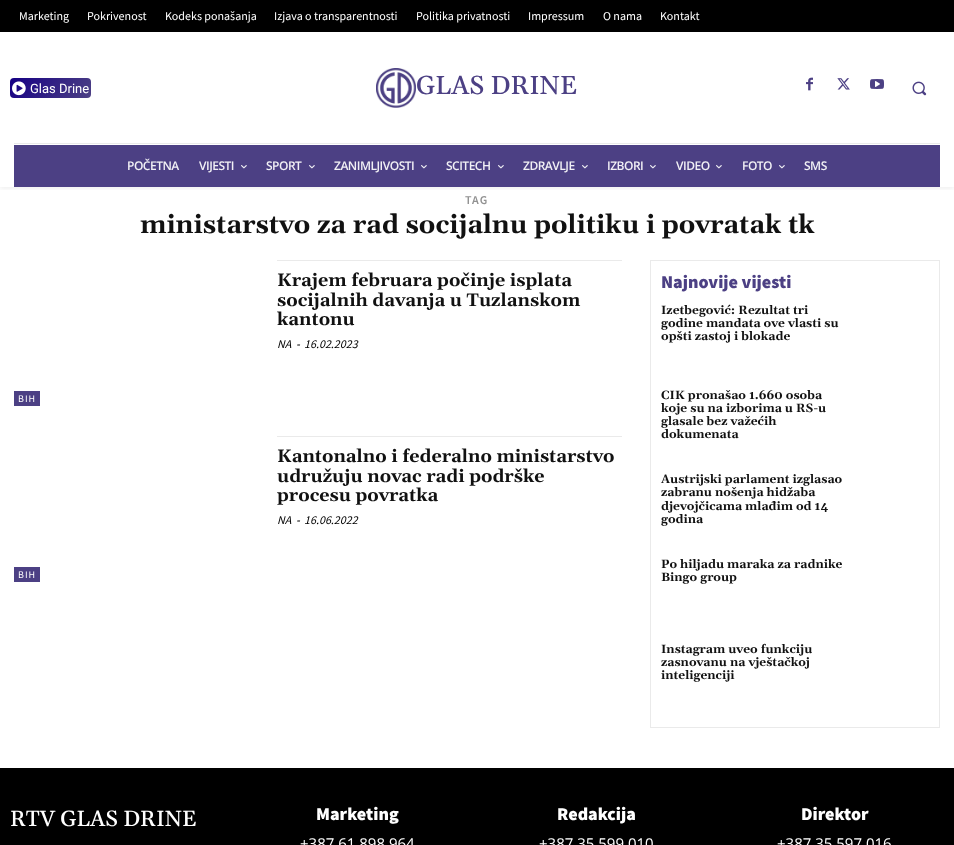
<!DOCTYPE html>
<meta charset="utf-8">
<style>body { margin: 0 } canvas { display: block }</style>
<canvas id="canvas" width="954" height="845"></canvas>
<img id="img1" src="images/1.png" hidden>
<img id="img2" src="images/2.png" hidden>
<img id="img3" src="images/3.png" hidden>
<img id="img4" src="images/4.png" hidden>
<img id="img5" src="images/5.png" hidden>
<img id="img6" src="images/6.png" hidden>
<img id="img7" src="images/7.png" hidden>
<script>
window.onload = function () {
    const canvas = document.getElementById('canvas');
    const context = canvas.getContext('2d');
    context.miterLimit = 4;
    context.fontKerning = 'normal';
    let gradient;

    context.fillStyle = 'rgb(255, 255, 255)';
    context.fillRect(0, 0, 954, 845);
    context.fillStyle = 'rgb(0, 0, 0)';
    context.fillRect(0, 0, 954, 32);
    gradient = context.createLinearGradient(85, 108, 16, 68);
    gradient.addColorStop(0, 'rgb(76, 64, 132)');
    gradient.addColorStop(1, 'rgb(22, 0, 132)');
    context.fillStyle = gradient;
    context.beginPath();
    context.roundRect(10, 78, 81, 20, 4);
    context.fill();
    context.drawImage(document.getElementById('img1'), 12, 81, 14, 15);
    context.drawImage(document.getElementById('img2'), 376, 68, 40, 40);
    context.drawImage(document.getElementById('img3'), 806, 77, 7, 14);
    context.drawImage(document.getElementById('img4'), 837, 78, 13, 12);
    context.drawImage(document.getElementById('img5'), 870, 79, 14, 10);
    context.drawImage(document.getElementById('img6'), 912, 81, 15, 15);
    context.fillStyle = 'rgb(234, 234, 234)';
    context.fillRect(14, 143, 926, 1);
    context.save();
    context.beginPath();
    context.rect(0, 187, 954, 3);
    context.clip();
    context.fillStyle = 'rgba(0, 0, 0, 0.06)';
    context.filter = 'blur(2px)';
    context.beginPath();
    context.rect(0, 115, 954, 74);
    context.fill();
    context.filter = 'none';
    context.restore();
    context.fillStyle = 'rgb(76, 64, 132)';
    context.fillRect(14, 145, 926, 42);
    context.drawImage(document.getElementById('img7'), 241, 165, 6, 4);
    context.drawImage(document.getElementById('img7'), 309, 165, 6, 4);
    context.drawImage(document.getElementById('img7'), 421, 165, 6, 4);
    context.drawImage(document.getElementById('img7'), 498, 165, 6, 4);
    context.drawImage(document.getElementById('img7'), 582, 165, 6, 4);
    context.drawImage(document.getElementById('img7'), 650, 165, 6, 4);
    context.drawImage(document.getElementById('img7'), 716, 165, 6, 4);
    context.drawImage(document.getElementById('img7'), 779, 165, 6, 4);
    context.fillStyle = 'rgb(234, 234, 234)';
    context.fillRect(277, 260, 345, 1);
    context.fillStyle = 'rgb(76, 64, 132)';
    context.fillRect(14, 391, 26, 15);
    context.fillStyle = 'rgb(234, 234, 234)';
    context.fillRect(277, 436, 345, 1);
    context.fillStyle = 'rgb(76, 64, 132)';
    context.fillRect(14, 567, 26, 15);
    context.strokeStyle = 'rgb(234, 234, 234)';
    context.strokeRect(650.5, 260.5, 289, 467);
    context.fillStyle = 'rgb(0, 0, 0)';
    context.fillRect(0, 768, 954, 77);
    context.font = '12px Source Sans Pro';
    context.fillStyle = 'rgb(255, 255, 255)';
    context.fillText('Marketing', 19, 20);
    context.fillText('Pokrivenost', 87, 20);
    context.fillText('Kodeks ponašanja', 165, 20);
    context.fillText('Izjava o transparentnosti', 274, 20);
    context.fillText('Politika privatnosti', 416, 20);
    context.fillText('Impressum', 528, 20);
    context.fillText('O nama', 603, 20);
    context.fillText('Kontakt', 660, 20);
    context.font = '13px Roboto';
    context.fillText('Glas Drine', 30, 93);
    context.font = '500 26px Gelasio';
    context.fillStyle = 'rgb(76, 64, 132)';
    context.fillText('GLAS DRINE', 416, 94);
    context.letterSpacing = '-0.5px';
    context.font = '600 12px Open Sans';
    context.fillStyle = 'rgb(241, 240, 245)';
    context.fillText('POČETNA', 127, 170);
    context.fillText('VIJESTI', 199, 170);
    context.fillText('SPORT', 266, 170);
    context.fillText('ZANIMLJIVOSTI', 334, 170);
    context.fillText('SCITECH', 446, 170);
    context.fillText('ZDRAVLJE', 523, 170);
    context.fillText('IZBORI', 607, 170);
    context.fillText('VIDEO', 676, 170);
    context.fillText('FOTO', 742, 170);
    context.fillText('SMS', 804, 170);
    context.letterSpacing = '1px';
    context.font = '600 12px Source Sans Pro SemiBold';
    context.fillStyle = 'rgb(145, 145, 145)';
    context.fillText('TAG', 465, 204);
    context.letterSpacing = '0px';
    context.font = 'bold 26px Gelasio';
    context.fillStyle = 'rgb(17, 17, 17)';
    context.fillText('ministarstvo za rad socijalnu politiku i povratak tk', 140, 233);
    context.font = 'bold 18px Gelasio';
    context.fillText('Krajem februara počinje isplata', 277, 286);
    context.fillText('socijalnih davanja u Tuzlanskom', 277, 306);
    context.fillText('kantonu', 277, 325);
    context.font = 'italic 12px Source Sans Pro';
    context.fillStyle = 'rgb(0, 0, 0)';
    context.fillText('NA', 277, 348);
    context.fillText('-', 296, 348);
    context.fillText('16.02.2023', 304, 348);
    context.letterSpacing = '1px';
    context.font = '10px Source Sans Pro';
    context.fillStyle = 'rgb(255, 255, 255)';
    context.fillText('BIH', 18, 402);
    context.letterSpacing = '0px';
    context.font = 'bold 18px Gelasio';
    context.fillStyle = 'rgb(17, 17, 17)';
    context.fillText('Kantonalno i federalno ministarstvo', 277, 462);
    context.fillText('udružuju novac radi podrške', 277, 482);
    context.fillText('procesu povratka', 277, 501);
    context.font = 'italic 12px Source Sans Pro';
    context.fillStyle = 'rgb(0, 0, 0)';
    context.fillText('NA', 277, 524);
    context.fillText('-', 296, 524);
    context.fillText('16.06.2022', 304, 524);
    context.letterSpacing = '1px';
    context.font = '10px Source Sans Pro';
    context.fillStyle = 'rgb(255, 255, 255)';
    context.fillText('BIH', 18, 578);
    context.letterSpacing = '0px';
    context.font = '900 18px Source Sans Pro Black';
    context.fillStyle = 'rgb(76, 64, 132)';
    context.fillText('Najnovije vijesti', 661, 288);
    context.font = 'bold 12px Gelasio';
    context.fillStyle = 'rgb(17, 17, 17)';
    context.fillText('Izetbegović: Rezultat tri', 661, 314);
    context.fillText('godine mandata ove vlasti su', 661, 327);
    context.fillText('opšti zastoj i blokade', 661, 340);
    context.fillText('CIK pronašao 1.660 osoba', 661, 399);
    context.fillText('koje su na izborima u RS-u', 661, 412);
    context.fillText('glasale bez važećih', 661, 425);
    context.fillText('dokumenata', 661, 438);
    context.fillText('Austrijski parlament izglasao', 661, 483);
    context.fillText('zabranu nošenja hidžaba', 661, 496);
    context.fillText('djevojčicama mlađim od 14', 661, 510);
    context.fillText('godina', 661, 523);
    context.fillText('Po hiljadu maraka za radnike', 661, 568);
    context.fillText('Bingo group', 661, 581);
    context.fillText('Instagram uveo funkciju', 661, 653);
    context.fillText('zasnovanu na vještačkoj', 661, 666);
    context.fillText('inteligenciji', 661, 679);
    context.font = '500 22px Gelasio';
    context.fillStyle = 'rgb(255, 255, 255)';
    context.fillText('RTV GLAS DRINE', 10, 826);
    context.font = '900 18px Source Sans Pro Black';
    context.fillText('Marketing', 316, 820);
    context.font = '15px Open Sans';
    context.fillText('+387 61 898 964', 300, 849);
    context.font = '900 18px Source Sans Pro Black';
    context.fillText('Redakcija', 557, 820);
    context.font = '15px Open Sans';
    context.fillText('+387 35 599 010', 539, 849);
    context.font = '900 18px Source Sans Pro Black';
    context.fillText('Direktor', 801, 820);
    context.font = '15px Open Sans';
    context.fillText('+387 35 597 016', 777, 849);
};
</script>
